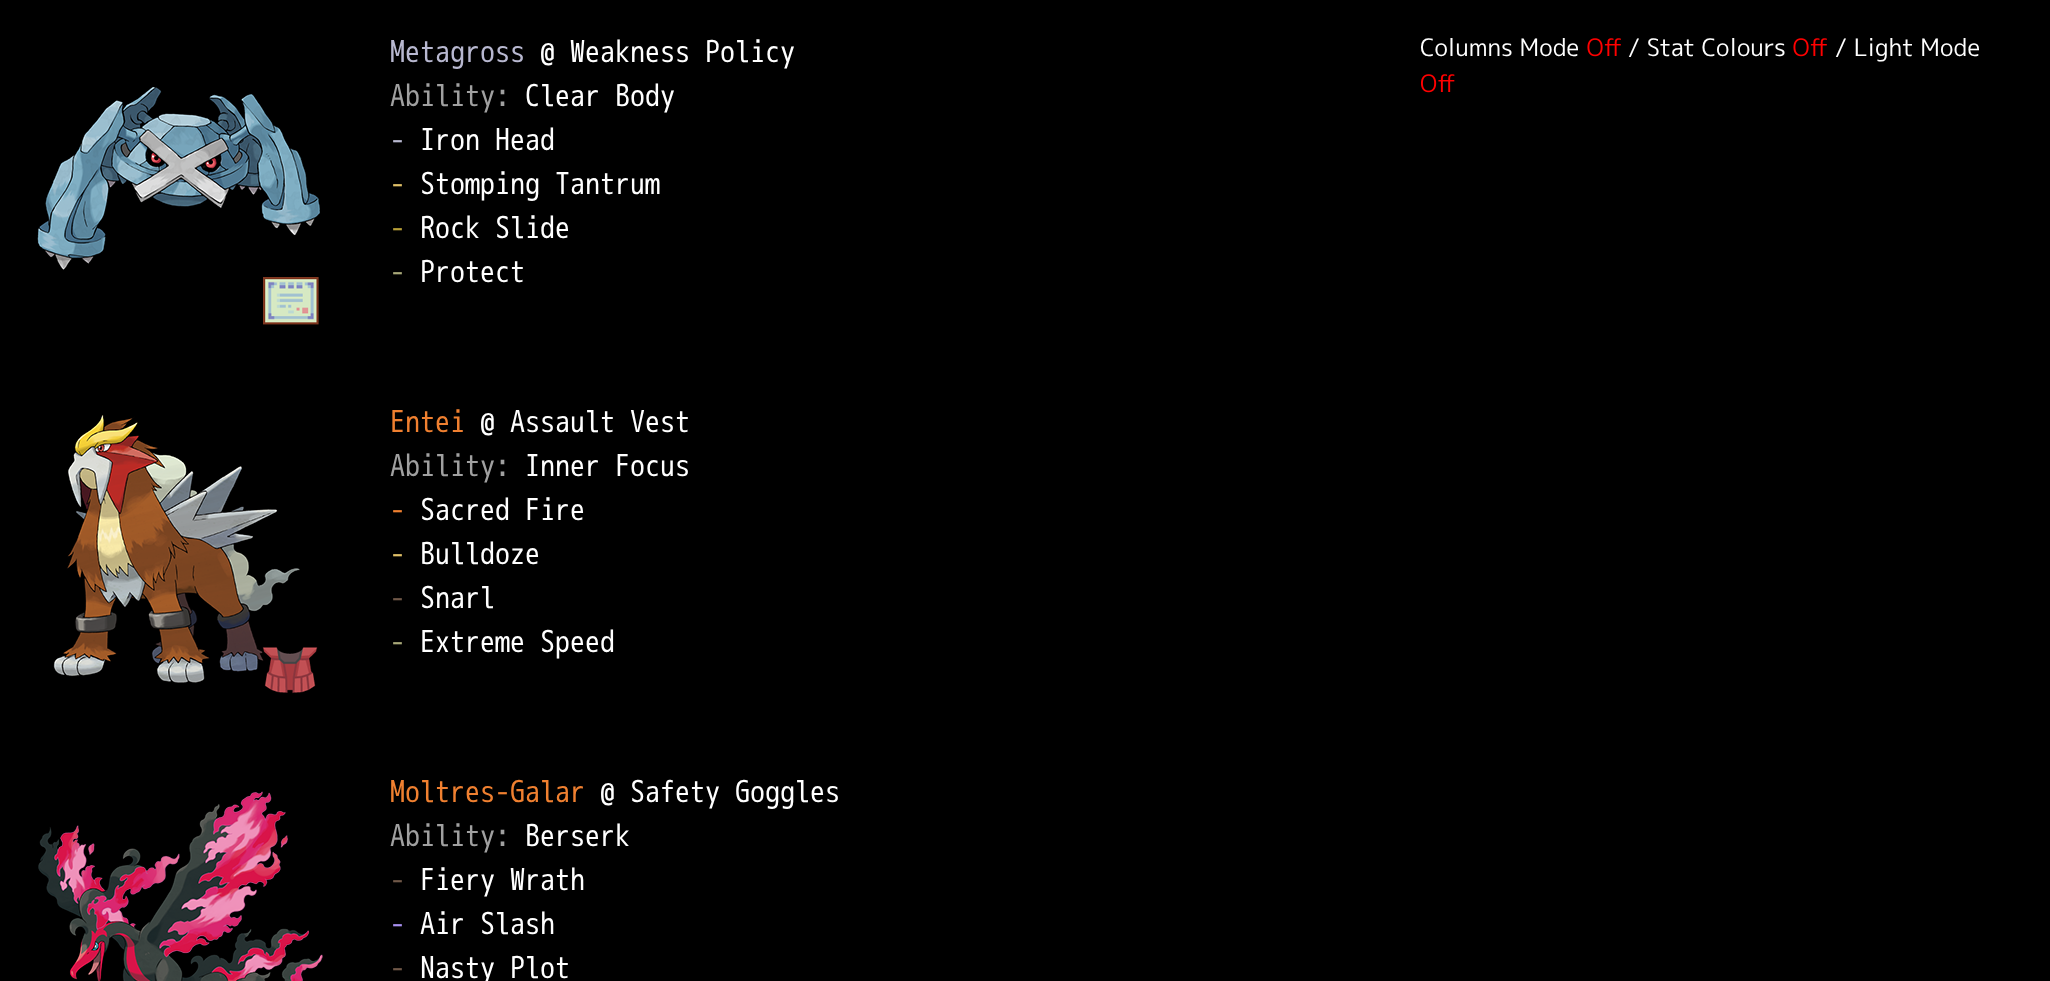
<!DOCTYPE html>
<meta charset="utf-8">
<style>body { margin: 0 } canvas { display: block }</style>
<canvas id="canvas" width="2050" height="981"></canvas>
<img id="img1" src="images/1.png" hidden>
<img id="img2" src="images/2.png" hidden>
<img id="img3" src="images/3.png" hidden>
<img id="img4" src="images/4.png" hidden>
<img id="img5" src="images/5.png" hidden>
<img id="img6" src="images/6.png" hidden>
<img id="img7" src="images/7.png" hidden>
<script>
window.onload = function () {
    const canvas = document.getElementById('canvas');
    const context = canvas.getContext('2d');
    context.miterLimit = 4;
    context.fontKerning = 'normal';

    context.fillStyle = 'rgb(0, 0, 0)';
    context.fillRect(0, 0, 2050, 981);
    context.drawImage(document.getElementById('img1'), 37, 87, 283, 183);
    context.drawImage(document.getElementById('img2'), 263, 277, 56, 48);
    context.drawImage(document.getElementById('img3'), 1587, 38, 34, 19);
    context.drawImage(document.getElementById('img3'), 1793, 38, 34, 19);
    context.drawImage(document.getElementById('img4'), 1421, 74, 34, 19);
    context.drawImage(document.getElementById('img5'), 53, 415, 247, 268);
    context.drawImage(document.getElementById('img6'), 261, 647, 57, 47);
    context.drawImage(document.getElementById('img7'), 38, 791, 285, 190);
    context.font = '30px "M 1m"';
    context.fillStyle = 'rgb(184, 184, 208)';
    context.fillText('Metagross', 390, 62);
    context.fillStyle = 'rgb(255, 255, 255)';
    context.fillText('@ Weakness Policy', 540, 62);
    context.fillStyle = 'rgb(160, 160, 160)';
    context.fillText('Ability:', 390, 106);
    context.fillStyle = 'rgb(255, 255, 255)';
    context.fillText('Clear Body', 525, 106);
    context.fillStyle = 'rgb(184, 184, 208)';
    context.fillText('-', 390, 150);
    context.fillStyle = 'rgb(255, 255, 255)';
    context.fillText('Iron Head', 420, 150);
    context.fillStyle = 'rgb(224, 192, 104)';
    context.fillText('-', 390, 194);
    context.fillStyle = 'rgb(255, 255, 255)';
    context.fillText('Stomping Tantrum', 420, 194);
    context.fillStyle = 'rgb(184, 160, 56)';
    context.fillText('-', 390, 238);
    context.fillStyle = 'rgb(255, 255, 255)';
    context.fillText('Rock Slide', 420, 238);
    context.fillStyle = 'rgb(168, 168, 120)';
    context.fillText('-', 390, 282);
    context.fillStyle = 'rgb(255, 255, 255)';
    context.fillText('Protect', 420, 282);
    context.font = '24px "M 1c"';
    context.fillText('Columns Mode', 1420, 56);
    context.fillText('/ Stat Colours', 1628, 56);
    context.fillText('/ Light Mode', 1835, 56);
    context.font = '30px "M 1m"';
    context.fillStyle = 'rgb(240, 128, 48)';
    context.fillText('Entei', 390, 432);
    context.fillStyle = 'rgb(255, 255, 255)';
    context.fillText('@ Assault Vest', 480, 432);
    context.fillStyle = 'rgb(160, 160, 160)';
    context.fillText('Ability:', 390, 476);
    context.fillStyle = 'rgb(255, 255, 255)';
    context.fillText('Inner Focus', 525, 476);
    context.fillStyle = 'rgb(240, 128, 48)';
    context.fillText('-', 390, 520);
    context.fillStyle = 'rgb(255, 255, 255)';
    context.fillText('Sacred Fire', 420, 520);
    context.fillStyle = 'rgb(224, 192, 104)';
    context.fillText('-', 390, 564);
    context.fillStyle = 'rgb(255, 255, 255)';
    context.fillText('Bulldoze', 420, 564);
    context.fillStyle = 'rgb(112, 88, 72)';
    context.fillText('-', 390, 608);
    context.fillStyle = 'rgb(255, 255, 255)';
    context.fillText('Snarl', 420, 608);
    context.fillStyle = 'rgb(168, 168, 120)';
    context.fillText('-', 390, 652);
    context.fillStyle = 'rgb(255, 255, 255)';
    context.fillText('Extreme Speed', 420, 652);
    context.fillStyle = 'rgb(240, 128, 48)';
    context.fillText('Moltres-Galar', 390, 802);
    context.fillStyle = 'rgb(255, 255, 255)';
    context.fillText('@ Safety Goggles', 600, 802);
    context.fillStyle = 'rgb(160, 160, 160)';
    context.fillText('Ability:', 390, 846);
    context.fillStyle = 'rgb(255, 255, 255)';
    context.fillText('Berserk', 525, 846);
    context.fillStyle = 'rgb(112, 88, 72)';
    context.fillText('-', 390, 890);
    context.fillStyle = 'rgb(255, 255, 255)';
    context.fillText('Fiery Wrath', 420, 890);
    context.fillStyle = 'rgb(168, 144, 240)';
    context.fillText('-', 390, 934);
    context.fillStyle = 'rgb(255, 255, 255)';
    context.fillText('Air Slash', 420, 934);
    context.fillStyle = 'rgb(112, 88, 72)';
    context.fillText('-', 390, 978);
    context.fillStyle = 'rgb(255, 255, 255)';
    context.fillText('Nasty Plot', 420, 978);
};
</script>
